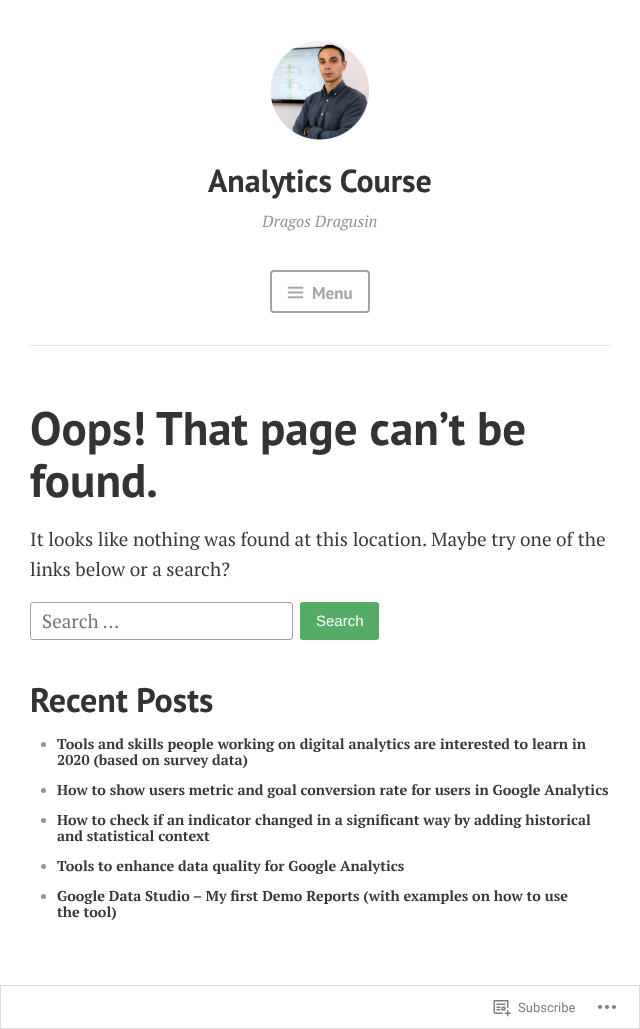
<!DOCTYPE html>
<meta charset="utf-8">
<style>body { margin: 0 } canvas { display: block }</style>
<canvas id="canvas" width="640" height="1029"></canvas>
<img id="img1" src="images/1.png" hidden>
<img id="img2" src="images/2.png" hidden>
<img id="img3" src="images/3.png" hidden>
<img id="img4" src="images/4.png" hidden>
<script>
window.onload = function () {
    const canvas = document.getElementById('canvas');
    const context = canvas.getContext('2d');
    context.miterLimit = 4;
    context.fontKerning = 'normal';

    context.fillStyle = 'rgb(255, 255, 255)';
    context.fillRect(0, 0, 640, 1029);
    context.drawImage(document.getElementById('img1'), 270, 41, 99, 99);
    context.fillStyle = 'rgb(228, 228, 228)';
    context.fillRect(30, 345, 580, 1);
    context.beginPath();
    context.roundRect(271, 271, 98, 41, 3);
    context.strokeStyle = 'rgb(164, 164, 164)';
    context.lineWidth = 2;
    context.stroke();
    context.drawImage(document.getElementById('img2'), 287, 286, 17, 13);
    context.beginPath();
    context.roundRect(30.5, 602.5, 262, 37, 2.5);
    context.strokeStyle = 'rgb(161, 161, 161)';
    context.lineWidth = 1;
    context.stroke();
    context.fillStyle = 'rgb(84, 172, 101)';
    context.beginPath();
    context.roundRect(300, 602, 79, 38, 3);
    context.fill();
    context.fillStyle = 'rgb(147, 147, 147)';
    context.beginPath();
    context.arc(43.5, 744.5, 2.5, 0, 2 * Math.PI);
    context.fill();
    context.beginPath();
    context.arc(43.5, 790.5, 2.5, 0, 2 * Math.PI);
    context.fill();
    context.beginPath();
    context.arc(43.5, 820.5, 2.5, 0, 2 * Math.PI);
    context.fill();
    context.beginPath();
    context.arc(43.5, 866.5, 2.5, 0, 2 * Math.PI);
    context.fill();
    context.beginPath();
    context.arc(43.5, 896.5, 2.5, 0, 2 * Math.PI);
    context.fill();
    context.strokeStyle = 'rgba(220, 220, 222, 0.98)';
    context.strokeRect(0.5, 985.5, 639, 43);
    context.drawImage(document.getElementById('img3'), 493, 1000, 18, 17);
    context.drawImage(document.getElementById('img4'), 598, 1005, 18, 4);
    context.font = 'bold 32px PT Sans';
    context.fillStyle = 'rgb(51, 51, 50)';
    context.fillText('Analytics Course', 208, 192);
    context.font = 'italic 16px PT Serif';
    context.fillStyle = 'rgb(146, 146, 146)';
    context.fillText('Dragos Dragusin', 262, 227);
    context.font = 'bold 17px PT Sans';
    context.fillStyle = 'rgb(164, 164, 164)';
    context.fillText('Menu', 312, 299);
    context.font = 'bold 47px PT Sans';
    context.fillStyle = 'rgb(51, 51, 50)';
    context.fillText('Oops! That page can’t be', 30, 445);
    context.fillText('found.', 30, 497);
    context.font = '19px PT Serif';
    context.fillStyle = 'rgb(56, 56, 56)';
    context.fillText('It looks like nothing was found at this location. Maybe try one of the', 30, 546);
    context.fillText('links below or a search?', 30, 576);
    context.fillStyle = 'rgb(117, 117, 117)';
    context.fillText('Search …', 42, 628);
    context.font = '15px Liberation Sans';
    context.fillStyle = 'rgb(255, 255, 255)';
    context.fillText('Search', 316, 626);
    context.font = 'bold 34px PT Sans';
    context.fillStyle = 'rgb(51, 51, 50)';
    context.fillText('Recent Posts', 30, 712);
    context.font = 'bold 14.4px PT Serif';
    context.fillStyle = 'rgb(56, 56, 56)';
    context.fillText('Tools and skills people working on digital analytics are interested to learn in', 57, 749);
    context.fillText('2020 (based on survey data)', 57, 765);
    context.fillText('How to show users metric and goal conversion rate for users in Google Analytics', 57, 795);
    context.fillText('How to check if an indicator changed in a significant way by adding historical', 57, 825);
    context.fillText('and statistical context', 57, 841);
    context.fillText('Tools to enhance data quality for Google Analytics', 57, 871);
    context.fillText('Google Data Studio – My first Demo Reports (with examples on how to use', 57, 901);
    context.fillText('the tool)', 57, 917);
    context.font = '13px Roboto';
    context.fillStyle = 'rgb(123, 127, 133)';
    context.fillText('Subscribe', 518, 1012);
};
</script>
